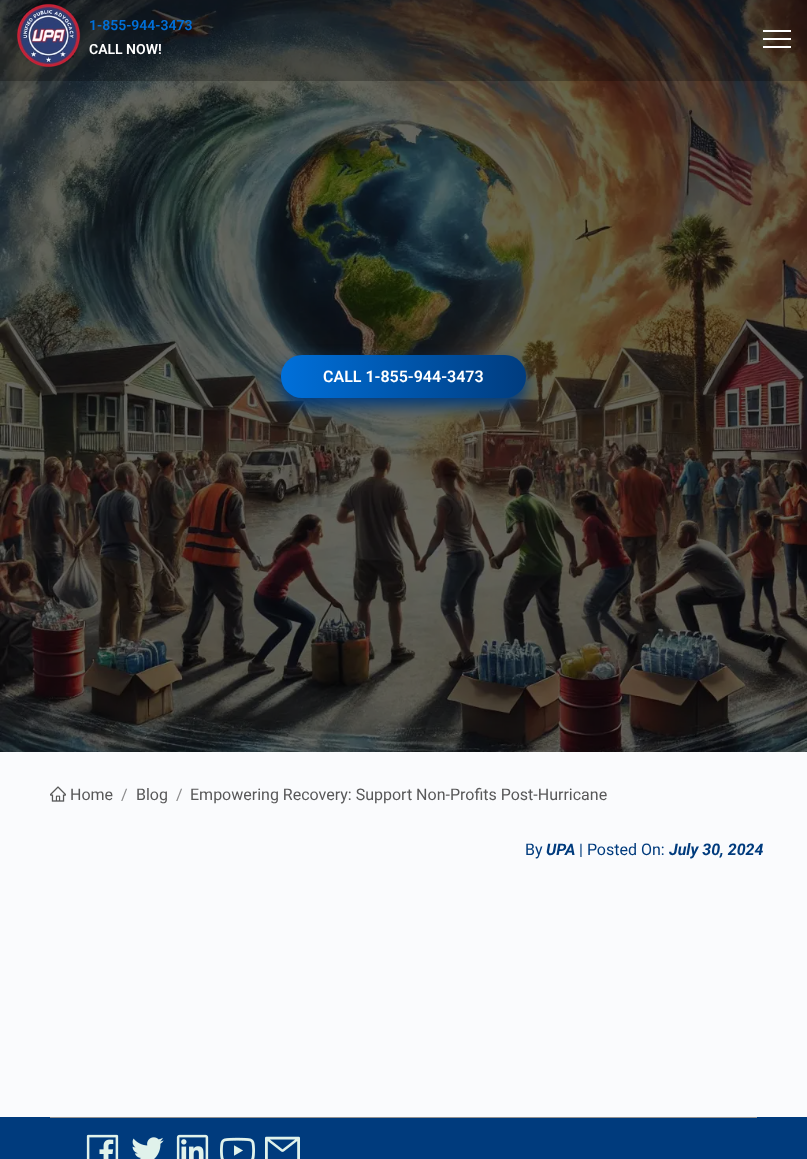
<!DOCTYPE html>
<meta charset="utf-8">
<style>body { margin: 0 } canvas { display: block }</style>
<canvas id="canvas" width="807" height="1159"></canvas>
<img id="img1" src="images/2.png" hidden>
<img id="img2" src="images/1.png" hidden>
<img id="img3" src="images/3.png" hidden>
<img id="img4" src="images/4.png" hidden>
<img id="img5" src="images/5.png" hidden>
<img id="img6" src="images/6.png" hidden>
<img id="img7" src="images/7.png" hidden>
<img id="img8" src="images/8.png" hidden>
<script>
window.onload = function () {
    const canvas = document.getElementById('canvas');
    const context = canvas.getContext('2d');
    context.miterLimit = 4;
    context.fontKerning = 'normal';
    let gradient;

    context.fillStyle = 'rgb(250, 251, 253)';
    context.fillRect(0, 0, 807, 1159);
    context.drawImage(document.getElementById('img1'), 0, 0, 807, 752);
    context.fillStyle = 'rgba(0, 0, 0, 0.25)';
    context.fillRect(0, 0, 807, 81);
    context.drawImage(document.getElementById('img2'), 16, 3, 65, 65);
    context.fillStyle = 'rgb(255, 255, 255)';
    context.fillRect(763, 30, 28, 2);
    context.fillRect(763, 38, 28, 2);
    context.fillRect(763, 46, 28, 2);
    context.fillStyle = 'rgb(0, 59, 125)';
    context.filter = 'blur(8px)';
    context.beginPath();
    context.roundRect(281, 363, 245, 43, 21);
    context.fill();
    context.filter = 'none';
    gradient = context.createLinearGradient(281, 377, 771, 377);
    gradient.addColorStop(0, 'rgb(0, 112, 218)');
    gradient.addColorStop(0.51, 'rgb(0, 59, 125)');
    gradient.addColorStop(1, 'rgb(0, 112, 218)');
    context.fillStyle = gradient;
    context.beginPath();
    context.roundRect(281, 355, 245, 43, 21);
    context.fill();
    context.drawImage(document.getElementById('img3'), 50, 786, 16, 16);
    context.fillStyle = 'rgb(0, 59, 125)';
    context.fillRect(0, 1117, 807, 42);
    context.fillStyle = 'rgb(145, 145, 145)';
    context.fillRect(50, 1117, 707, 1);
    context.drawImage(document.getElementById('img4'), 86, 1134, 33, 25);
    context.drawImage(document.getElementById('img5'), 132, 1137, 32, 22);
    context.drawImage(document.getElementById('img6'), 176, 1134, 33, 25);
    context.drawImage(document.getElementById('img7'), 220, 1137, 35, 22);
    context.drawImage(document.getElementById('img8'), 265, 1136, 35, 23);
    context.font = '600 14px Roboto';
    context.fillStyle = 'rgb(0, 112, 218)';
    context.fillText('1-855-944-3473', 89, 30);
    context.fillStyle = 'rgb(255, 255, 255)';
    context.fillText('CALL NOW!', 89, 54);
    context.font = '600 16px Roboto';
    context.fillText('CALL 1-855-944-3473', 323, 382);
    context.font = '16px Roboto';
    context.fillStyle = 'rgb(88, 88, 89)';
    context.fillText('Home', 70, 800);
    context.fillStyle = 'rgb(138, 138, 139)';
    context.fillText('/', 121, 800);
    context.fillStyle = 'rgb(88, 88, 89)';
    context.fillText('Blog', 136, 800);
    context.fillStyle = 'rgb(138, 138, 139)';
    context.fillText('/', 176, 800);
    context.fillStyle = 'rgb(88, 88, 89)';
    context.fillText('Empowering Recovery: Support Non-Profits Post-Hurricane', 190, 800);
    context.fillStyle = 'rgb(0, 59, 125)';
    context.fillText('By', 525, 855);
    context.font = 'italic bold 16px Roboto';
    context.fillText('UPA', 546, 855);
    context.font = '16px Roboto';
    context.fillText('| Posted On:', 579, 855);
    context.font = 'italic bold 16px Roboto';
    context.fillText('July 30, 2024', 669, 855);
};
</script>
